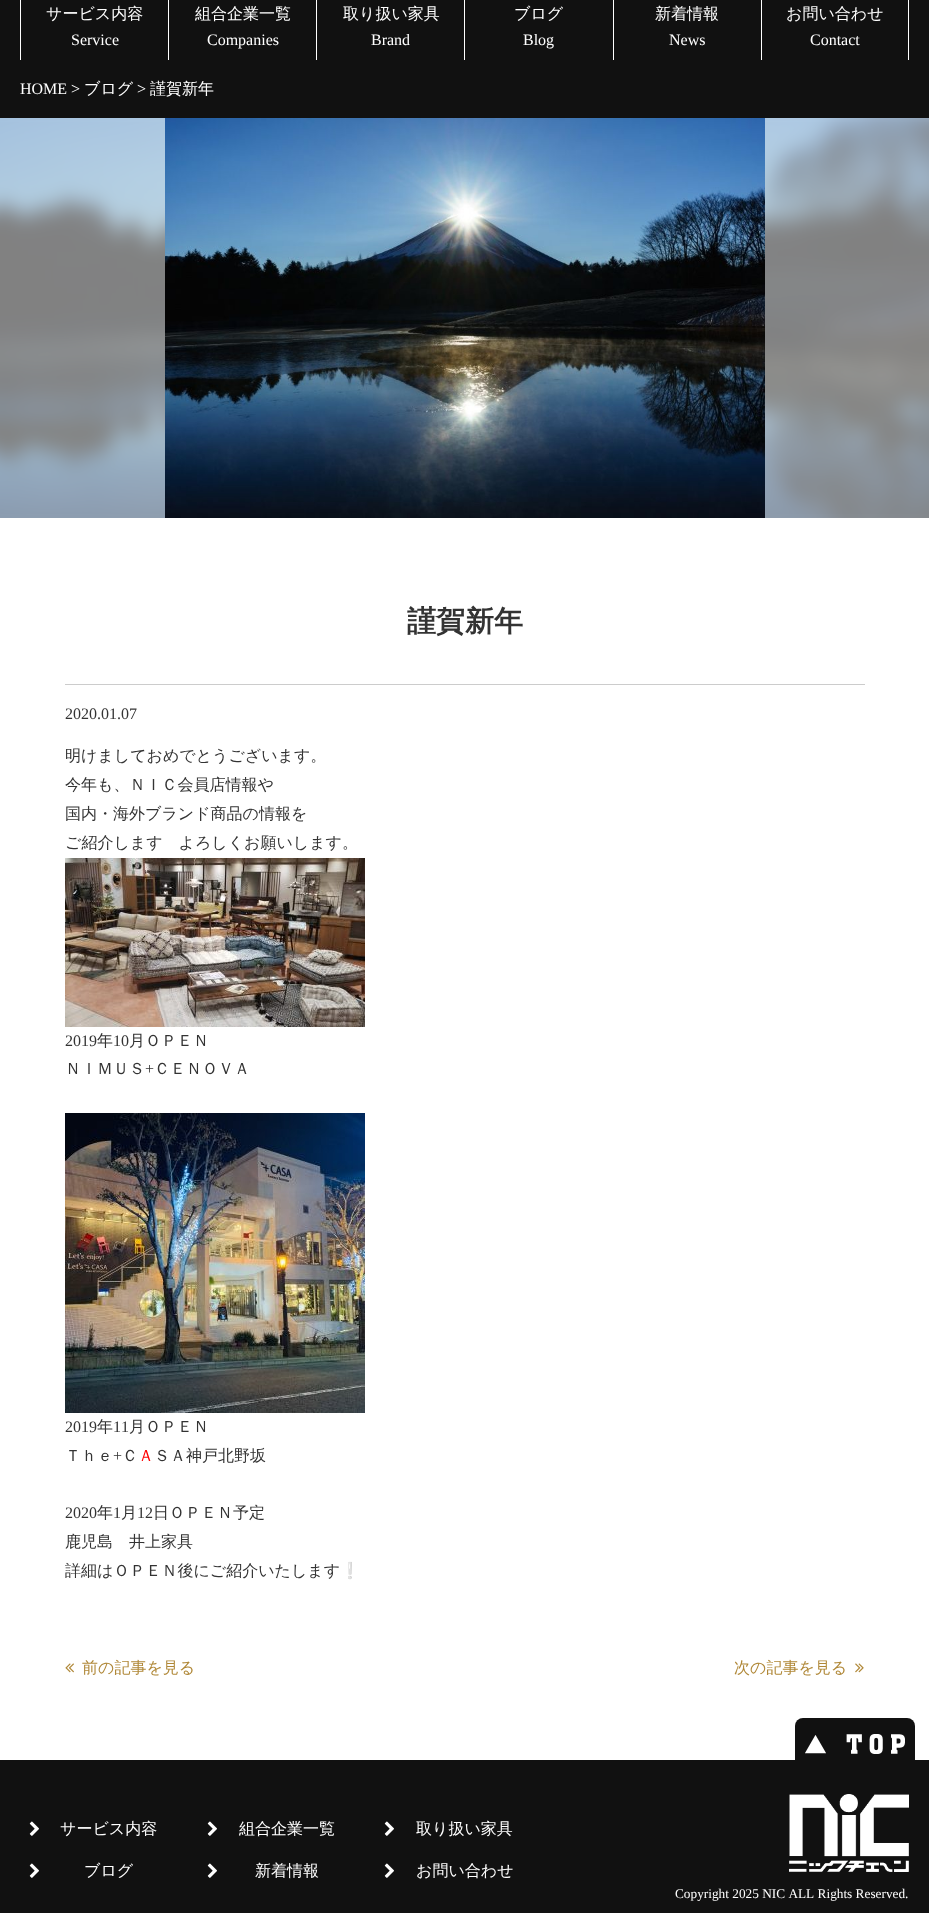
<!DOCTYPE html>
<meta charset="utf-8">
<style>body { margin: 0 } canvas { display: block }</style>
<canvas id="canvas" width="929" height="1913"></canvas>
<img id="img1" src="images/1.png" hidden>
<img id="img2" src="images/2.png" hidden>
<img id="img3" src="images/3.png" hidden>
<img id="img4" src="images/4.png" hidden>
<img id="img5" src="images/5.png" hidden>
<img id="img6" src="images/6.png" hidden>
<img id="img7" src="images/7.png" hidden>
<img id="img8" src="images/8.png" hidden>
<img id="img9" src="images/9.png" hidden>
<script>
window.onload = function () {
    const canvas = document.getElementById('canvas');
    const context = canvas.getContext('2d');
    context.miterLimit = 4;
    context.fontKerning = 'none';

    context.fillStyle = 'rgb(255, 255, 255)';
    context.fillRect(0, 0, 929, 1913);
    context.fillStyle = 'rgb(17, 17, 17)';
    context.fillRect(0, 0, 929, 118);
    context.fillStyle = 'rgb(255, 255, 255)';
    context.fillRect(20, 0, 1, 60);
    context.fillRect(168, 0, 1, 60);
    context.fillRect(316, 0, 1, 60);
    context.fillRect(464, 0, 1, 60);
    context.fillRect(613, 0, 1, 60);
    context.fillRect(908, 0, 1, 60);
    context.fillRect(761, 0, 1, 60);
    context.drawImage(document.getElementById('img1'), 0, 118, 929, 400);
    context.drawImage(document.getElementById('img2'), 165, 118, 600, 400);
    context.fillStyle = 'rgb(204, 204, 204)';
    context.fillRect(65, 684, 800, 1);
    context.drawImage(document.getElementById('img3'), 65, 858, 300, 169);
    context.drawImage(document.getElementById('img4'), 65, 1113, 300, 300);
    context.drawImage(document.getElementById('img5'), 65, 1663, 9, 10);
    context.drawImage(document.getElementById('img6'), 855, 1663, 9, 10);
    context.fillStyle = 'rgb(17, 17, 17)';
    context.fillRect(0, 1760, 929, 153);
    context.beginPath();
    context.roundRect(795, 1718, 120, 46, [8, 8, 0, 0]);
    context.fill();
    context.drawImage(document.getElementById('img7'), 805, 1734, 100, 20);
    context.drawImage(document.getElementById('img8'), 29, 1821, 10, 15);
    context.drawImage(document.getElementById('img8'), 207, 1821, 10, 15);
    context.drawImage(document.getElementById('img8'), 384, 1821, 10, 15);
    context.drawImage(document.getElementById('img8'), 29, 1863, 10, 15);
    context.drawImage(document.getElementById('img8'), 207, 1863, 10, 15);
    context.drawImage(document.getElementById('img8'), 384, 1863, 10, 15);
    context.drawImage(document.getElementById('img9'), 789, 1794, 120, 78);
    context.font = '500 16px WenQuanYi Zen Hei';
    context.fillStyle = 'rgb(255, 255, 255)';
    context.fillText('サービス内容', 46, 19);
    context.font = '16px Liberation Serif';
    context.fillText('Service', 71, 45);
    context.font = '500 16px WenQuanYi Zen Hei';
    context.fillText('組合企業一覧', 195, 19);
    context.font = '16px Liberation Serif';
    context.fillText('Companies', 207, 45);
    context.font = '500 16px WenQuanYi Zen Hei';
    context.fillText('取り扱い家具', 343, 19);
    context.font = '16px Liberation Serif';
    context.fillText('Brand', 371, 45);
    context.font = '500 16px WenQuanYi Zen Hei';
    context.fillText('ブログ', 514, 19);
    context.font = '16px Liberation Serif';
    context.fillText('Blog', 523, 45);
    context.font = '500 16px WenQuanYi Zen Hei';
    context.fillText('新着情報', 655, 19);
    context.font = '16px Liberation Serif';
    context.fillText('News', 669, 45);
    context.font = '500 16px WenQuanYi Zen Hei';
    context.fillText('お問い合わせ', 786, 19);
    context.font = '16px Liberation Serif';
    context.fillText('Contact', 810, 45);
    context.fillText('HOME >', 20, 94);
    context.font = '500 16px WenQuanYi Zen Hei';
    context.fillText('ブログ', 84, 94);
    context.font = '16px Liberation Serif';
    context.fillText('>', 137, 94);
    context.font = '500 16px WenQuanYi Zen Hei';
    context.fillText('謹賀新年', 150, 94);
    context.font = 'bold 29px WenQuanYi Zen Hei';
    context.fillStyle = 'rgb(51, 51, 51)';
    context.fillText('謹賀新年', 407, 631);
    context.font = '16px Liberation Serif';
    context.fillText('2020.01.07', 65, 719);
    context.font = '500 16px WenQuanYi Zen Hei';
    context.fillText('明けましておめでとうございます。', 65, 761);
    context.fillText('今年も、ＮＩＣ会員店情報や', 65, 790);
    context.fillText('国内・海外ブランド商品の情報を', 65, 819);
    context.fillText('ご紹介します　よろしくお願いします。', 65, 848);
    context.font = '16px Liberation Serif';
    context.fillText('2019', 65, 1046);
    context.font = '500 16px WenQuanYi Zen Hei';
    context.fillText('年', 97, 1046);
    context.font = '16px Liberation Serif';
    context.fillText('10', 113, 1046);
    context.font = '500 16px WenQuanYi Zen Hei';
    context.fillText('月ＯＰＥＮ', 129, 1046);
    context.fillText('ＮＩＭＵＳ', 65, 1074);
    context.font = '16px Liberation Serif';
    context.fillText('+', 145, 1074);
    context.font = '500 16px WenQuanYi Zen Hei';
    context.fillText('ＣＥＮＯＶＡ', 154, 1074);
    context.font = '16px Liberation Serif';
    context.fillText('2019', 65, 1432);
    context.font = '500 16px WenQuanYi Zen Hei';
    context.fillText('年', 97, 1432);
    context.font = '16px Liberation Serif';
    context.fillText('11', 113, 1432);
    context.font = '500 16px WenQuanYi Zen Hei';
    context.fillText('月ＯＰＥＮ', 129, 1432);
    context.fillText('Ｔｈｅ', 65, 1461);
    context.font = '16px Liberation Serif';
    context.fillText('+', 113, 1461);
    context.font = '500 16px WenQuanYi Zen Hei';
    context.fillText('Ｃ', 122, 1461);
    context.fillStyle = 'rgb(255, 0, 0)';
    context.fillText('Ａ', 138, 1461);
    context.fillStyle = 'rgb(51, 51, 51)';
    context.fillText('ＳＡ神戸北野坂', 154, 1461);
    context.font = '16px Liberation Serif';
    context.fillText('2020', 65, 1518);
    context.font = '500 16px WenQuanYi Zen Hei';
    context.fillText('年', 97, 1518);
    context.font = '16px Liberation Serif';
    context.fillText('1', 113, 1518);
    context.font = '500 16px WenQuanYi Zen Hei';
    context.fillText('月', 121, 1518);
    context.font = '16px Liberation Serif';
    context.fillText('12', 137, 1518);
    context.font = '500 16px WenQuanYi Zen Hei';
    context.fillText('日ＯＰＥＮ予定', 153, 1518);
    context.fillText('鹿児島　井上家具', 65, 1547);
    context.fillText('詳細はＯＰＥＮ後にご紹介いたします', 65, 1576);
    context.font = '16px Noto Color Emoji';
    context.fillText('❕', 340, 1576);
    context.font = '500 16px WenQuanYi Zen Hei';
    context.fillStyle = 'rgb(176, 136, 56)';
    context.fillText('前の記事を見る', 82, 1673);
    context.fillText('次の記事を見る', 734, 1673);
    context.fillStyle = 'rgb(255, 255, 255)';
    context.fillText('サービス内容', 60, 1834);
    context.fillText('組合企業一覧', 239, 1834);
    context.fillText('取り扱い家具', 416, 1834);
    context.fillText('ブログ', 84, 1876);
    context.fillText('新着情報', 255, 1876);
    context.fillText('お問い合わせ', 416, 1876);
    context.font = '13.3px Liberation Serif';
    context.fillText('Copyright 2025 NIC ALL Rights Reserved.', 675, 1898);
};
</script>
